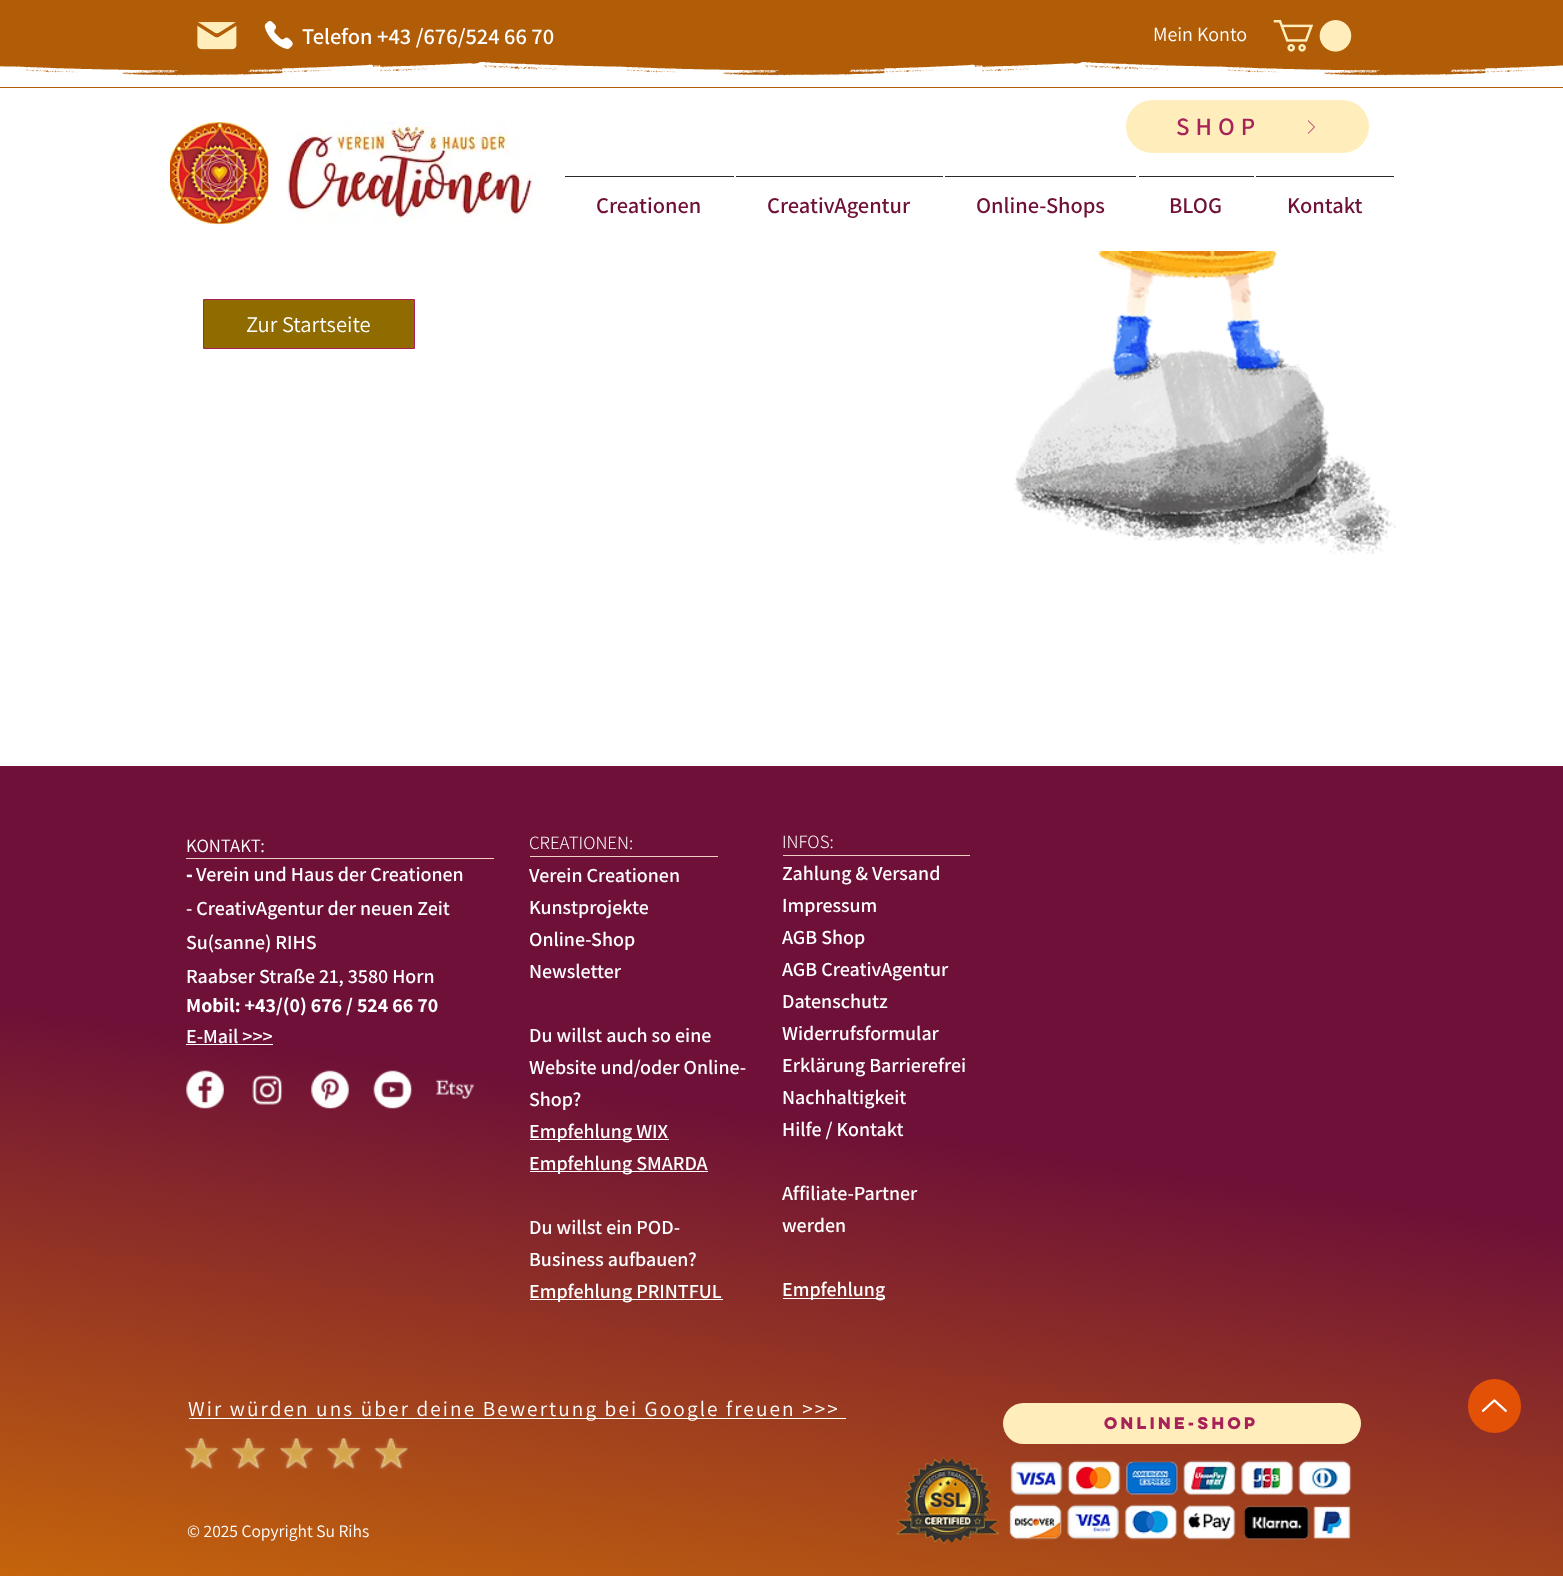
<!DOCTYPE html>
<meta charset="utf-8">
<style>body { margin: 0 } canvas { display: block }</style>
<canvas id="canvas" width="1563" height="1576"></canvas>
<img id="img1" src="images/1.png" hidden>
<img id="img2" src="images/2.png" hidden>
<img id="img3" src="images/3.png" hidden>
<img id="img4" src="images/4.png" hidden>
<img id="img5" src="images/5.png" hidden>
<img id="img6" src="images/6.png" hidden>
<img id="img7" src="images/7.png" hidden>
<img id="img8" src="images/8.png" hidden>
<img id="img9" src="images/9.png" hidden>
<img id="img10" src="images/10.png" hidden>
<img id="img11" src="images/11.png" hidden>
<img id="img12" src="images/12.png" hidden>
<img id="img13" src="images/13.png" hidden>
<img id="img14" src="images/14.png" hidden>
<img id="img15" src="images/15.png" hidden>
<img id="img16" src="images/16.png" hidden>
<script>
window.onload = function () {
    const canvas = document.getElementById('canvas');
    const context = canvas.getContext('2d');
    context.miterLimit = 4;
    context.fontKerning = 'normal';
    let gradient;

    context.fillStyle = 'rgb(255, 255, 255)';
    context.fillRect(0, 0, 1563, 1576);
    context.fillStyle = 'rgb(177, 92, 7)';
    context.fillRect(0, 0, 1563, 88);
    context.drawImage(document.getElementById('img1'), 197, 22, 40, 28);
    context.drawImage(document.getElementById('img2'), 264, 21, 29, 28);
    context.drawImage(document.getElementById('img3'), 1273, 20, 79, 32);
    context.drawImage(document.getElementById('img4'), 0, 62, 1563, 25);
    context.drawImage(document.getElementById('img5'), 170, 122, 99, 103);
    context.drawImage(document.getElementById('img6'), 287, 122, 250, 101);
    context.fillStyle = 'rgb(255, 238, 188)';
    context.beginPath();
    context.roundRect(1126, 100, 243, 53, 26.5);
    context.fill();
    context.fillStyle = 'rgb(166, 34, 88)';
    context.beginPath();
    context.moveTo(1308, 120);
    context.lineTo(1308, 121);
    context.lineTo(1314, 127);
    context.lineTo(1273, 127);
    context.lineTo(1314, 127);
    context.lineTo(1308, 133);
    context.lineTo(1308, 134);
    context.lineTo(1315, 127);
    context.closePath();
    context.fill();
    context.fillStyle = 'rgb(42, 42, 42)';
    context.fillRect(565, 176, 169, 1);
    context.fillRect(736, 176, 207, 1);
    context.fillRect(945, 176, 191, 1);
    context.fillRect(1139, 176, 115, 1);
    context.fillRect(1256, 176, 138, 1);
    context.fillStyle = 'rgb(143, 107, 0)';
    context.beginPath();
    context.rect(203.5, 299.5, 211, 49);
    context.fill();
    context.strokeStyle = 'rgb(166, 34, 88)';
    context.stroke();
    context.drawImage(document.getElementById('img7'), 1014, 251, 382, 303);
    gradient = context.createLinearGradient(856, 667, 708, 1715);
    gradient.addColorStop(0.43, 'rgb(110, 16, 55)');
    gradient.addColorStop(1, 'rgb(203, 106, 8)');
    context.fillStyle = gradient;
    context.fillRect(0, 766, 1563, 810);
    context.fillStyle = 'rgb(255, 255, 255)';
    context.fillRect(186, 1044, 87, 1);
    context.fillStyle = 'rgb(240, 206, 193)';
    context.fillRect(186, 858, 308, 1);
    context.fillStyle = 'rgb(255, 255, 255)';
    context.fillRect(530, 1139, 139, 1);
    context.fillRect(530, 1171, 178, 1);
    context.fillRect(530, 1299, 193, 1);
    context.fillStyle = 'rgb(240, 206, 193)';
    context.fillRect(530, 856, 188, 1);
    context.fillStyle = 'rgb(255, 255, 255)';
    context.fillRect(783, 1298, 102, 1);
    context.fillStyle = 'rgb(240, 206, 193)';
    context.fillRect(783, 855, 187, 1);
    context.drawImage(document.getElementById('img8'), 186, 1070, 38, 39);
    context.drawImage(document.getElementById('img9'), 252, 1075, 31, 30);
    context.drawImage(document.getElementById('img10'), 311, 1070, 38, 39);
    context.drawImage(document.getElementById('img11'), 373, 1070, 39, 39);
    context.drawImage(document.getElementById('img12'), 436, 1079, 38, 21);
    context.fillStyle = 'rgb(255, 255, 255)';
    context.fillRect(189, 1418, 657, 1);
    context.drawImage(document.getElementById('img13'), 184, 1438, 225, 31);
    context.fillStyle = 'rgb(255, 238, 188)';
    context.beginPath();
    context.roundRect(1003, 1403, 358, 41, 20.5);
    context.fill();
    context.drawImage(document.getElementById('img14'), 896, 1457, 103, 87);
    context.drawImage(document.getElementById('img15'), 1009, 1460, 343, 80);
    context.fillStyle = 'rgb(227, 81, 6)';
    context.beginPath();
    context.roundRect(1468, 1379, 53, 54, 26.5);
    context.fill();
    context.drawImage(document.getElementById('img16'), 1481, 1399, 26, 13);
    context.font = '600 22.5px Assistant';
    context.fillStyle = 'rgb(255, 255, 255)';
    context.fillText('Telefon +43 /676/524 66 70', 302, 44);
    context.font = '20px Assistant';
    context.fillText('Mein Konto', 1153, 41);
    context.letterSpacing = '6px';
    context.font = '600 25px Assistant';
    context.fillStyle = 'rgb(166, 34, 88)';
    context.fillText('SHOP', 1176, 135);
    context.letterSpacing = '0px';
    context.font = '600 22.5px Assistant';
    context.fillStyle = 'rgb(110, 16, 55)';
    context.fillText('Creationen', 596, 213);
    context.fillText('CreativAgentur', 767, 213);
    context.fillText('Online-Shops', 976, 213);
    context.fillText('BLOG', 1169, 213);
    context.fillText('Kontakt', 1287, 213);
    context.font = '22.5px Assistant';
    context.fillStyle = 'rgb(255, 255, 255)';
    context.fillText('Zur Startseite', 246, 332);
    context.font = '18.75px Assistant';
    context.fillText('KONTAKT:', 186, 852);
    context.font = '800 20px Assistant';
    context.fillText('-', 186, 881);
    context.font = '600 20px Assistant';
    context.fillText('Verein und Haus der Creationen', 196, 881);
    context.fillText('- CreativAgentur der neuen Zeit', 186, 915);
    context.fillText('Su(sanne) RIHS', 186, 949);
    context.fillText('Raabser Straße 21, 3580 Horn', 186, 983);
    context.font = 'bold 20px Assistant';
    context.fillText('Mobil: +43/(0) 676 / 524 66 70', 186, 1012);
    context.font = '600 20px Assistant';
    context.fillText('E-Mail >>>', 186, 1043);
    context.font = '300 18.75px Assistant';
    context.fillText('CREATIONEN:', 529, 849);
    context.font = '600 20px Assistant';
    context.fillText('Verein Creationen', 529, 882);
    context.fillText('Kunstprojekte', 529, 914);
    context.fillText('Online-Shop', 529, 946);
    context.fillText('Newsletter', 529, 978);
    context.fillText('Du willst auch so eine', 529, 1042);
    context.fillText('Website und/oder Online-', 529, 1074);
    context.fillText('Shop?', 529, 1106);
    context.fillText('Empfehlung WIX', 529, 1138);
    context.fillText('Empfehlung SMARDA', 529, 1170);
    context.fillText('Du willst ein POD-', 529, 1234);
    context.fillText('Business aufbauen?', 529, 1266);
    context.fillText('Empfehlung PRINTFUL', 529, 1298);
    context.font = '300 18.75px Assistant';
    context.fillText('INFOS:', 782, 848);
    context.font = '600 20px Assistant';
    context.fillText('Zahlung & Versand', 782, 880);
    context.fillText('Impressum', 782, 912);
    context.fillText('AGB Shop', 782, 944);
    context.fillText('AGB CreativAgentur', 782, 976);
    context.fillText('Datenschutz', 782, 1008);
    context.fillText('Widerrufsformular', 782, 1040);
    context.fillText('Erklärung Barrierefrei', 782, 1072);
    context.fillText('Nachhaltigkeit', 782, 1104);
    context.fillText('Hilfe / Kontakt', 782, 1136);
    context.fillText('Affiliate-Partner', 782, 1200);
    context.fillText('werden', 782, 1232);
    context.fillText('Empfehlung', 782, 1296);
    context.letterSpacing = '2.12px';
    context.font = '21.25px Assistant';
    context.fillText('Wir würden uns über deine Bewertung bei Google freuen >>>', 188, 1416);
    context.letterSpacing = '0px';
    context.font = '17.5px Assistant';
    context.fillText('© 2025 Copyright Su Rihs', 187, 1537);
    context.font = 'bold 15px "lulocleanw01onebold"';
    context.fillStyle = 'rgb(166, 34, 88)';
    context.fillText('Online-SHOP', 1104, 1429);
};
</script>
